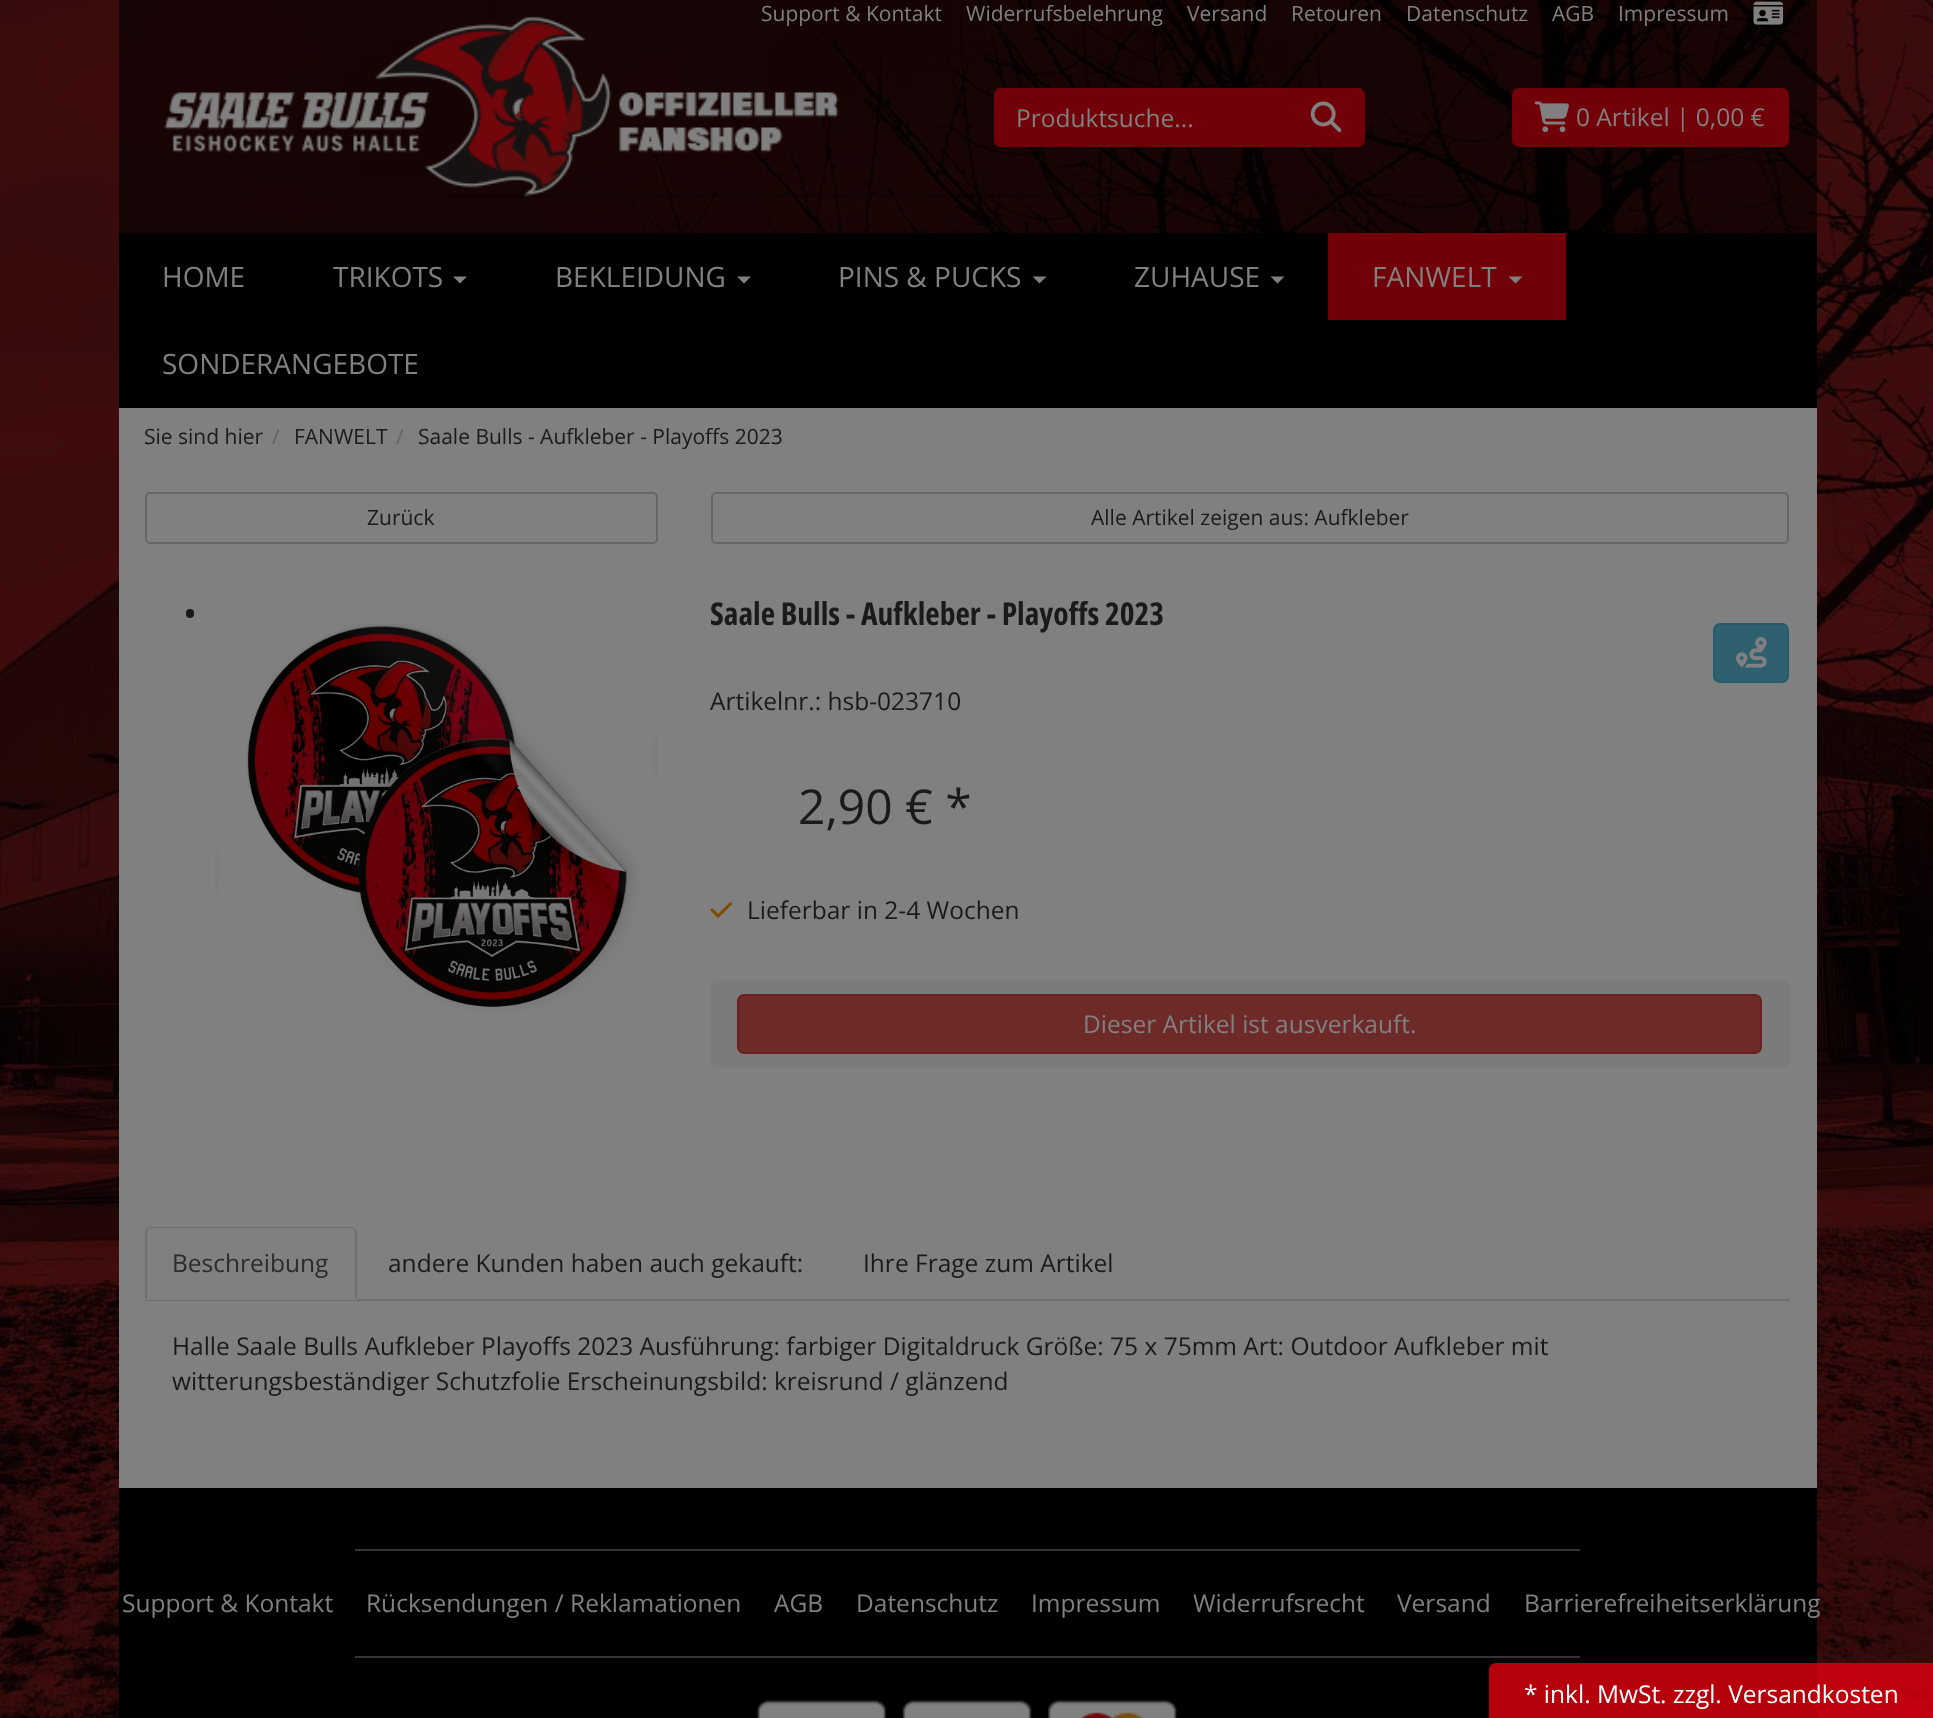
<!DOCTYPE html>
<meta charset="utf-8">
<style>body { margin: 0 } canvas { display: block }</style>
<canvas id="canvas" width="1933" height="1718"></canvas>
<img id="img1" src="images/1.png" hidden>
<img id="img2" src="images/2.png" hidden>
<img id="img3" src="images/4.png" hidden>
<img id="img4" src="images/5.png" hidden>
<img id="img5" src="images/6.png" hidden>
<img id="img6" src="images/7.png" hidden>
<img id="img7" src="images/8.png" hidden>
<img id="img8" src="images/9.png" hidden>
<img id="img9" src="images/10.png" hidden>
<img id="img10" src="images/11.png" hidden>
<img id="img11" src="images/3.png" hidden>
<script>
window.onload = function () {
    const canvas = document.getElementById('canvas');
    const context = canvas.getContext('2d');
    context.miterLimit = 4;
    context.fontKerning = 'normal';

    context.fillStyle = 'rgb(255, 255, 255)';
    context.fillRect(0, 0, 1933, 1718);
    context.drawImage(document.getElementById('img1'), 0, 0, 1933, 1718);
    context.fillStyle = 'rgba(0, 0, 0, 0.6)';
    context.fillRect(119, 0, 1698, 33);
    context.drawImage(document.getElementById('img2'), 1753, 1, 31, 24);
    context.fillRect(119, 33, 1698, 200);
    context.fillStyle = 'rgb(114, 0, 8)';
    context.beginPath();
    context.roundRect(994, 88, 296, 59, [7, 0, 0, 7]);
    context.fill();
    context.fillStyle = 'rgb(105, 0, 7)';
    context.beginPath();
    context.moveTo(1001, 91);
    context.lineTo(1288, 91);
    context.lineTo(1288, 89);
    context.lineTo(1000, 89);
    context.bezierCurveTo(996, 90, 996, 93, 996, 96);
    context.bezierCurveTo(996, 93, 998, 91, 1001, 91);
    context.closePath();
    context.fill();
    context.beginPath();
    context.roundRect(995, 89, 294, 57, [6, 0, 0, 6]);
    context.strokeStyle = 'rgb(114, 0, 8)';
    context.lineWidth = 2;
    context.stroke();
    context.fillStyle = 'rgb(114, 0, 8)';
    context.beginPath();
    context.roundRect(1289, 89, 75, 57, [0, 6, 6, 0]);
    context.fill();
    context.stroke();
    context.drawImage(document.getElementById('img3'), 1310, 101, 32, 32);
    context.beginPath();
    context.roundRect(1513, 89, 275, 57, 6);
    context.fill();
    context.stroke();
    context.drawImage(document.getElementById('img4'), 1534, 101, 35, 32);
    context.fillStyle = 'rgb(0, 0, 0)';
    context.fillRect(119, 233, 1698, 175);
    context.fillStyle = 'rgb(128, 128, 128)';
    context.beginPath();
    context.moveTo(453, 276.5);
    context.lineTo(467, 276.5);
    context.lineTo(460, 283.5);
    context.closePath();
    context.fill();
    context.beginPath();
    context.moveTo(737, 276.5);
    context.lineTo(751, 276.5);
    context.lineTo(744, 283.5);
    context.closePath();
    context.fill();
    context.beginPath();
    context.moveTo(1032.5, 276.5);
    context.lineTo(1046.5, 276.5);
    context.lineTo(1039.5, 283.5);
    context.closePath();
    context.fill();
    context.beginPath();
    context.moveTo(1270.5, 276.5);
    context.lineTo(1284.5, 276.5);
    context.lineTo(1277.5, 283.5);
    context.closePath();
    context.fill();
    context.fillStyle = 'rgb(114, 0, 8)';
    context.fillRect(1328, 233, 238, 87);
    context.fillStyle = 'rgb(128, 128, 128)';
    context.beginPath();
    context.moveTo(1508.5, 276.5);
    context.lineTo(1522.5, 276.5);
    context.lineTo(1515.5, 283.5);
    context.closePath();
    context.fill();
    context.fillRect(119, 408, 1698, 1080);
    context.beginPath();
    context.roundRect(146, 493, 511, 50, 4);
    context.strokeStyle = 'rgb(102, 102, 102)';
    context.stroke();
    context.beginPath();
    context.roundRect(712, 493, 1076, 50, 4);
    context.stroke();
    context.fillStyle = 'rgb(26, 26, 26)';
    context.beginPath();
    context.roundRect(186, 609, 8, 9, 4);
    context.fill();
    context.drawImage(document.getElementById('img5'), 215, 623, 443, 388);
    context.fillStyle = 'rgb(46, 96, 111)';
    context.beginPath();
    context.roundRect(1714, 624, 74, 58, 6);
    context.fill();
    context.strokeStyle = 'rgb(35, 92, 109)';
    context.stroke();
    context.drawImage(document.getElementById('img6'), 1736, 637, 31, 31);
    context.drawImage(document.getElementById('img7'), 710, 902, 22, 16);
    context.fillStyle = 'rgb(123, 123, 123)';
    context.beginPath();
    context.roundRect(711, 980, 1078, 88, 7);
    context.fill();
    context.fillStyle = 'rgb(109, 42, 40)';
    context.beginPath();
    context.roundRect(738, 995, 1023, 58, 6);
    context.fill();
    context.strokeStyle = 'rgb(106, 32, 29)';
    context.stroke();
    context.fillStyle = 'rgb(111, 111, 111)';
    context.fillRect(145, 1299, 1645, 2);
    context.fillStyle = 'rgb(128, 128, 128)';
    context.beginPath();
    context.roundRect(145, 1227, 212, 73, [7, 7, 0, 0]);
    context.fill();
    context.fillStyle = 'rgb(111, 111, 111)';
    context.beginPath();
    context.moveTo(152, 1227);
    context.bezierCurveTo(150, 1227, 148, 1228, 147, 1229);
    context.lineTo(148, 1230);
    context.bezierCurveTo(149, 1229, 150, 1228, 152, 1228);
    context.lineTo(350, 1228);
    context.bezierCurveTo(352, 1228, 353, 1229, 354, 1230);
    context.lineTo(355, 1229);
    context.bezierCurveTo(354, 1228, 352, 1227, 350, 1227);
    context.closePath();
    context.fill();
    context.beginPath();
    context.moveTo(355, 1229);
    context.bezierCurveTo(356, 1230, 357, 1232, 357, 1234);
    context.lineTo(357, 1300);
    context.lineTo(355, 1298);
    context.lineTo(355, 1234);
    context.bezierCurveTo(355, 1233, 355, 1231, 354, 1230);
    context.closePath();
    context.fill();
    context.beginPath();
    context.moveTo(145, 1232);
    context.lineTo(147, 1229);
    context.lineTo(148, 1230);
    context.bezierCurveTo(148, 1231, 147, 1232, 147, 1234);
    context.lineTo(147, 1298);
    context.lineTo(148, 1298);
    context.lineTo(145, 1300);
    context.closePath();
    context.fill();
    context.fillStyle = 'rgb(0, 0, 0)';
    context.fillRect(119, 1488, 1698, 230);
    context.fillStyle = 'rgb(51, 51, 51)';
    context.fillRect(355, 1549, 1225, 2);
    context.fillRect(355, 1656, 1225, 2);
    context.drawImage(document.getElementById('img8'), 757, 1700, 129, 18);
    context.drawImage(document.getElementById('img9'), 902, 1700, 130, 18);
    context.drawImage(document.getElementById('img10'), 1047, 1700, 130, 18);
    context.fillStyle = 'rgba(227, 0, 15, 0.8)';
    context.beginPath();
    context.moveTo(1496, 1663);
    context.lineTo(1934, 1663);
    context.lineTo(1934, 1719);
    context.lineTo(1489, 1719);
    context.lineTo(1489, 1670);
    context.bezierCurveTo(1489, 1666, 1492, 1663, 1496, 1663);
    context.closePath();
    context.fill();
    context.font = '21px Open Sans';
    context.fillStyle = 'rgb(128, 128, 128)';
    context.fillText('Support & Kontakt', 761, 21);
    context.fillText('Widerrufsbelehrung', 966, 21);
    context.fillText('Versand', 1187, 21);
    context.fillText('Retouren', 1291, 21);
    context.fillText('Datenschutz', 1406, 21);
    context.fillText('AGB', 1552, 21);
    context.fillText('Impressum', 1618, 21);
    context.drawImage(document.getElementById('img11'), 164, 16, 675, 181);
    context.font = '24.5px Open Sans';
    context.fillText('Produktsuche...', 1016, 127);
    context.fillText('0 Artikel | 0,00 €', 1576, 126);
    context.font = '28px Open Sans';
    context.fillText('HOME', 162, 287);
    context.fillText('TRIKOTS', 333, 287);
    context.fillText('BEKLEIDUNG', 555, 287);
    context.fillText('PINS & PUCKS', 838, 287);
    context.fillText('ZUHAUSE', 1134, 287);
    context.fillText('FANWELT', 1372, 287);
    context.fillText('SONDERANGEBOTE', 162, 374);
    context.font = '21px Open Sans';
    context.fillStyle = 'rgb(26, 26, 26)';
    context.fillText('Sie sind hier', 144, 444);
    context.fillStyle = 'rgb(102, 102, 102)';
    context.fillText('/', 272, 444);
    context.fillStyle = 'rgb(26, 26, 26)';
    context.fillText('FANWELT', 294, 444);
    context.fillStyle = 'rgb(102, 102, 102)';
    context.fillText('/', 396, 444);
    context.fillStyle = 'rgb(26, 26, 26)';
    context.fillText('Saale Bulls - Aufkleber - Playoffs 2023', 418, 444);
    context.fillStyle = 'rgba(0, 0, 0, 0.2)';
    context.beginPath();
    context.roundRect(443, 193, 1050, 4, 2);
    context.fill();
    context.fillStyle = 'rgb(26, 26, 26)';
    context.fillText('Zurück', 367, 525);
    context.fillText('Alle Artikel zeigen aus: Aufkleber', 1091, 525);
    context.font = 'bold 31.5px Open Sans Condensed';
    context.fillText('Saale Bulls - Aufkleber - Playoffs 2023', 710, 625);
    context.font = '24.5px Open Sans';
    context.fillText('Artikelnr.: hsb-023710', 710, 710);
    context.font = '48px Open Sans';
    context.fillText('2,90 € *', 798, 824);
    context.font = '24.5px Open Sans';
    context.fillText('Lieferbar in 2-4 Wochen', 747, 919);
    context.fillStyle = 'rgb(128, 128, 128)';
    context.fillText('Dieser Artikel ist ausverkauft.', 1083, 1033);
    context.fillStyle = 'rgb(43, 43, 43)';
    context.fillText('Beschreibung', 172, 1272);
    context.fillStyle = 'rgb(26, 26, 26)';
    context.fillText('andere Kunden haben auch gekauft:', 388, 1272);
    context.fillText('Ihre Frage zum Artikel', 863, 1272);
    context.fillText('Halle Saale Bulls Aufkleber Playoffs 2023 Ausführung: farbiger Digitaldruck Größe: 75 x 75mm Art: Outdoor Aufkleber mit', 172, 1355);
    context.fillText('witterungsbeständiger Schutzfolie Erscheinungsbild: kreisrund / glänzend', 172, 1390);
    context.fillStyle = 'rgb(128, 128, 128)';
    context.fillText('Support & Kontakt', 122, 1612);
    context.fillText('Rücksendungen / Reklamationen', 366, 1612);
    context.fillText('AGB', 774, 1612);
    context.fillText('Datenschutz', 856, 1612);
    context.fillText('Impressum', 1031, 1612);
    context.fillText('Widerrufsrecht', 1193, 1612);
    context.fillText('Versand', 1397, 1612);
    context.fillText('Barrierefreiheitserklärung', 1524, 1612);
    context.fillStyle = 'rgb(255, 255, 255)';
    context.fillText('* inkl. MwSt. zzgl. Versandkosten', 1524, 1703);
};
</script>
